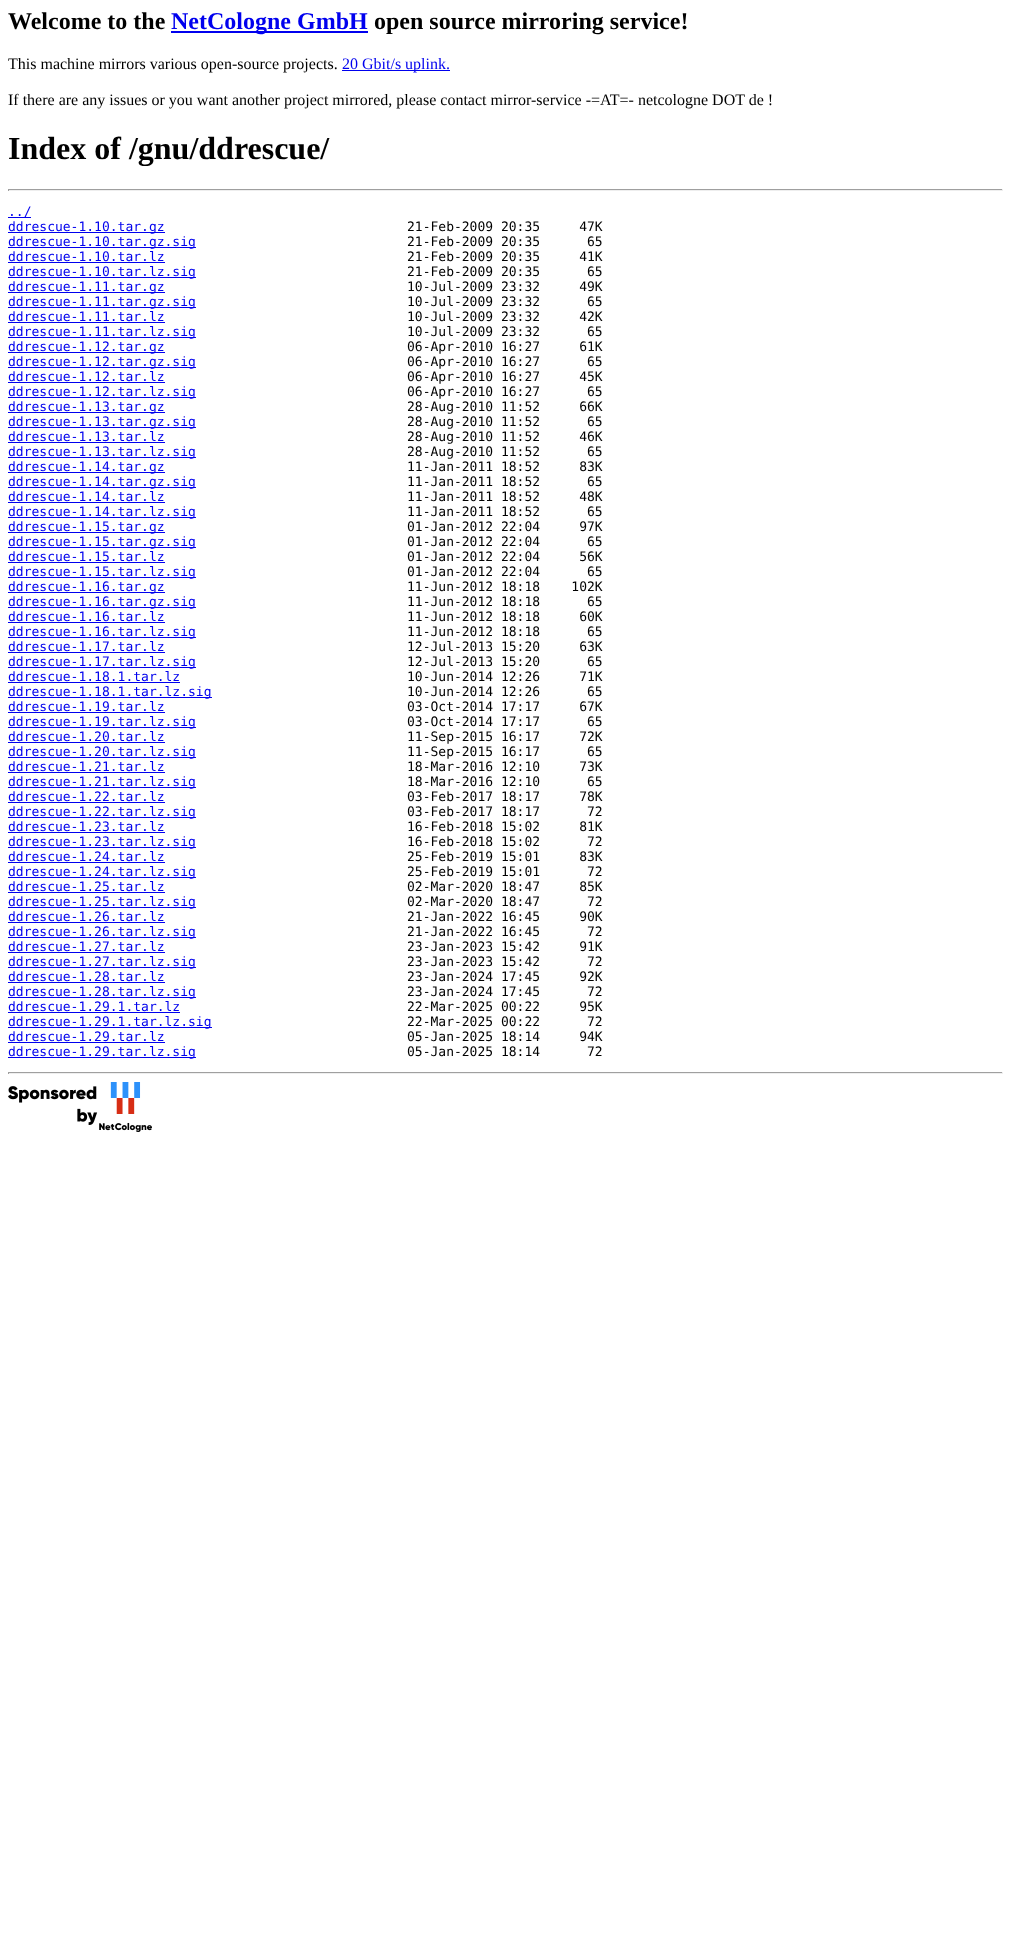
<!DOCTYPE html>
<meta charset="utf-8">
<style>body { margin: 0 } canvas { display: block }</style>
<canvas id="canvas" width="1011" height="1952"></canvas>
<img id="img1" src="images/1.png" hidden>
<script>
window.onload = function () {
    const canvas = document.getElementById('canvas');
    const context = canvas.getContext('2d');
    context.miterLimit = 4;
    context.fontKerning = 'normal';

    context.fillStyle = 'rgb(255, 255, 255)';
    context.fillRect(0, 0, 1011, 1952);
    context.fillStyle = 'rgb(0, 0, 238)';
    context.fillRect(171, 31, 197, 2);
    context.fillRect(342, 70, 108, 1);
    context.fillStyle = 'rgb(159, 159, 159)';
    context.fillRect(8, 189, 995, 1);
    context.fillStyle = 'rgb(238, 238, 238)';
    context.fillRect(1002, 189, 1, 2);
    context.fillRect(8, 190, 995, 1);
    context.fillStyle = 'rgb(159, 159, 159)';
    context.fillRect(8, 189, 1, 2);
    context.fillStyle = 'rgb(0, 0, 238)';
    context.fillRect(8, 217, 23, 1);
    context.fillRect(8, 232, 157, 1);
    context.fillRect(8, 247, 188, 1);
    context.fillRect(8, 262, 157, 1);
    context.fillRect(8, 277, 188, 1);
    context.fillRect(8, 292, 157, 1);
    context.fillRect(8, 307, 188, 1);
    context.fillRect(8, 322, 157, 1);
    context.fillRect(8, 337, 188, 1);
    context.fillRect(8, 352, 157, 1);
    context.fillRect(8, 367, 188, 1);
    context.fillRect(8, 382, 157, 1);
    context.fillRect(8, 397, 188, 1);
    context.fillRect(8, 412, 157, 1);
    context.fillRect(8, 427, 188, 1);
    context.fillRect(8, 442, 157, 1);
    context.fillRect(8, 457, 188, 1);
    context.fillRect(8, 472, 157, 1);
    context.fillRect(8, 487, 188, 1);
    context.fillRect(8, 502, 157, 1);
    context.fillRect(8, 517, 188, 1);
    context.fillRect(8, 532, 157, 1);
    context.fillRect(8, 547, 188, 1);
    context.fillRect(8, 562, 157, 1);
    context.fillRect(8, 577, 188, 1);
    context.fillRect(8, 592, 157, 1);
    context.fillRect(8, 607, 188, 1);
    context.fillRect(8, 622, 157, 1);
    context.fillRect(8, 637, 188, 1);
    context.fillRect(8, 652, 157, 1);
    context.fillRect(8, 667, 188, 1);
    context.fillRect(8, 682, 172, 1);
    context.fillRect(8, 697, 204, 1);
    context.fillRect(8, 712, 157, 1);
    context.fillRect(8, 727, 188, 1);
    context.fillRect(8, 742, 157, 1);
    context.fillRect(8, 757, 188, 1);
    context.fillRect(8, 772, 157, 1);
    context.fillRect(8, 787, 188, 1);
    context.fillRect(8, 802, 157, 1);
    context.fillRect(8, 817, 188, 1);
    context.fillRect(8, 832, 157, 1);
    context.fillRect(8, 847, 188, 1);
    context.fillRect(8, 862, 157, 1);
    context.fillRect(8, 877, 188, 1);
    context.fillRect(8, 892, 157, 1);
    context.fillRect(8, 907, 188, 1);
    context.fillRect(8, 922, 157, 1);
    context.fillRect(8, 937, 188, 1);
    context.fillRect(8, 952, 157, 1);
    context.fillRect(8, 967, 188, 1);
    context.fillRect(8, 982, 157, 1);
    context.fillRect(8, 997, 188, 1);
    context.fillRect(8, 1012, 172, 1);
    context.fillRect(8, 1027, 204, 1);
    context.fillRect(8, 1042, 157, 1);
    context.fillRect(8, 1057, 188, 1);
    context.fillStyle = 'rgb(159, 159, 159)';
    context.fillRect(8, 1072, 995, 1);
    context.fillStyle = 'rgb(238, 238, 238)';
    context.fillRect(1002, 1072, 1, 2);
    context.fillRect(8, 1073, 995, 1);
    context.fillStyle = 'rgb(159, 159, 159)';
    context.fillRect(8, 1072, 1, 2);
    context.drawImage(document.getElementById('img1'), 8, 1082, 144, 50);
    context.font = 'bold 24px Liberation Serif';
    context.fillStyle = 'rgb(0, 0, 0)';
    context.fillText('Welcome to the', 8, 29);
    context.fillStyle = 'rgb(0, 0, 238)';
    context.fillText('NetCologne GmbH', 171, 29);
    context.fillStyle = 'rgb(0, 0, 0)';
    context.fillText('open source mirroring service!', 374, 29);
    context.font = '16px Liberation Serif';
    context.fillText('This machine mirrors various open-source projects.', 8, 69);
    context.fillStyle = 'rgb(0, 0, 238)';
    context.fillText('20 Gbit/s uplink.', 342, 69);
    context.fillStyle = 'rgb(0, 0, 0)';
    context.fillText('If there are any issues or you want another project mirrored, please contact mirror-service -=AT=- netcologne DOT de !', 8, 105);
    context.font = 'bold 32px Liberation Serif';
    context.fillText('Index of /gnu/ddrescue/', 8, 159);
    context.font = '13px DejaVu Sans Mono';
    context.fillStyle = 'rgb(0, 0, 238)';
    context.fillText('../', 8, 216);
    context.fillText('ddrescue-1.10.tar.gz', 8, 231);
    context.fillStyle = 'rgb(0, 0, 0)';
    context.fillText('21-Feb-2009 20:35     47K', 407, 231);
    context.fillStyle = 'rgb(0, 0, 238)';
    context.fillText('ddrescue-1.10.tar.gz.sig', 8, 246);
    context.fillStyle = 'rgb(0, 0, 0)';
    context.fillText('21-Feb-2009 20:35      65', 407, 246);
    context.fillStyle = 'rgb(0, 0, 238)';
    context.fillText('ddrescue-1.10.tar.lz', 8, 261);
    context.fillStyle = 'rgb(0, 0, 0)';
    context.fillText('21-Feb-2009 20:35     41K', 407, 261);
    context.fillStyle = 'rgb(0, 0, 238)';
    context.fillText('ddrescue-1.10.tar.lz.sig', 8, 276);
    context.fillStyle = 'rgb(0, 0, 0)';
    context.fillText('21-Feb-2009 20:35      65', 407, 276);
    context.fillStyle = 'rgb(0, 0, 238)';
    context.fillText('ddrescue-1.11.tar.gz', 8, 291);
    context.fillStyle = 'rgb(0, 0, 0)';
    context.fillText('10-Jul-2009 23:32     49K', 407, 291);
    context.fillStyle = 'rgb(0, 0, 238)';
    context.fillText('ddrescue-1.11.tar.gz.sig', 8, 306);
    context.fillStyle = 'rgb(0, 0, 0)';
    context.fillText('10-Jul-2009 23:32      65', 407, 306);
    context.fillStyle = 'rgb(0, 0, 238)';
    context.fillText('ddrescue-1.11.tar.lz', 8, 321);
    context.fillStyle = 'rgb(0, 0, 0)';
    context.fillText('10-Jul-2009 23:32     42K', 407, 321);
    context.fillStyle = 'rgb(0, 0, 238)';
    context.fillText('ddrescue-1.11.tar.lz.sig', 8, 336);
    context.fillStyle = 'rgb(0, 0, 0)';
    context.fillText('10-Jul-2009 23:32      65', 407, 336);
    context.fillStyle = 'rgb(0, 0, 238)';
    context.fillText('ddrescue-1.12.tar.gz', 8, 351);
    context.fillStyle = 'rgb(0, 0, 0)';
    context.fillText('06-Apr-2010 16:27     61K', 407, 351);
    context.fillStyle = 'rgb(0, 0, 238)';
    context.fillText('ddrescue-1.12.tar.gz.sig', 8, 366);
    context.fillStyle = 'rgb(0, 0, 0)';
    context.fillText('06-Apr-2010 16:27      65', 407, 366);
    context.fillStyle = 'rgb(0, 0, 238)';
    context.fillText('ddrescue-1.12.tar.lz', 8, 381);
    context.fillStyle = 'rgb(0, 0, 0)';
    context.fillText('06-Apr-2010 16:27     45K', 407, 381);
    context.fillStyle = 'rgb(0, 0, 238)';
    context.fillText('ddrescue-1.12.tar.lz.sig', 8, 396);
    context.fillStyle = 'rgb(0, 0, 0)';
    context.fillText('06-Apr-2010 16:27      65', 407, 396);
    context.fillStyle = 'rgb(0, 0, 238)';
    context.fillText('ddrescue-1.13.tar.gz', 8, 411);
    context.fillStyle = 'rgb(0, 0, 0)';
    context.fillText('28-Aug-2010 11:52     66K', 407, 411);
    context.fillStyle = 'rgb(0, 0, 238)';
    context.fillText('ddrescue-1.13.tar.gz.sig', 8, 426);
    context.fillStyle = 'rgb(0, 0, 0)';
    context.fillText('28-Aug-2010 11:52      65', 407, 426);
    context.fillStyle = 'rgb(0, 0, 238)';
    context.fillText('ddrescue-1.13.tar.lz', 8, 441);
    context.fillStyle = 'rgb(0, 0, 0)';
    context.fillText('28-Aug-2010 11:52     46K', 407, 441);
    context.fillStyle = 'rgb(0, 0, 238)';
    context.fillText('ddrescue-1.13.tar.lz.sig', 8, 456);
    context.fillStyle = 'rgb(0, 0, 0)';
    context.fillText('28-Aug-2010 11:52      65', 407, 456);
    context.fillStyle = 'rgb(0, 0, 238)';
    context.fillText('ddrescue-1.14.tar.gz', 8, 471);
    context.fillStyle = 'rgb(0, 0, 0)';
    context.fillText('11-Jan-2011 18:52     83K', 407, 471);
    context.fillStyle = 'rgb(0, 0, 238)';
    context.fillText('ddrescue-1.14.tar.gz.sig', 8, 486);
    context.fillStyle = 'rgb(0, 0, 0)';
    context.fillText('11-Jan-2011 18:52      65', 407, 486);
    context.fillStyle = 'rgb(0, 0, 238)';
    context.fillText('ddrescue-1.14.tar.lz', 8, 501);
    context.fillStyle = 'rgb(0, 0, 0)';
    context.fillText('11-Jan-2011 18:52     48K', 407, 501);
    context.fillStyle = 'rgb(0, 0, 238)';
    context.fillText('ddrescue-1.14.tar.lz.sig', 8, 516);
    context.fillStyle = 'rgb(0, 0, 0)';
    context.fillText('11-Jan-2011 18:52      65', 407, 516);
    context.fillStyle = 'rgb(0, 0, 238)';
    context.fillText('ddrescue-1.15.tar.gz', 8, 531);
    context.fillStyle = 'rgb(0, 0, 0)';
    context.fillText('01-Jan-2012 22:04     97K', 407, 531);
    context.fillStyle = 'rgb(0, 0, 238)';
    context.fillText('ddrescue-1.15.tar.gz.sig', 8, 546);
    context.fillStyle = 'rgb(0, 0, 0)';
    context.fillText('01-Jan-2012 22:04      65', 407, 546);
    context.fillStyle = 'rgb(0, 0, 238)';
    context.fillText('ddrescue-1.15.tar.lz', 8, 561);
    context.fillStyle = 'rgb(0, 0, 0)';
    context.fillText('01-Jan-2012 22:04     56K', 407, 561);
    context.fillStyle = 'rgb(0, 0, 238)';
    context.fillText('ddrescue-1.15.tar.lz.sig', 8, 576);
    context.fillStyle = 'rgb(0, 0, 0)';
    context.fillText('01-Jan-2012 22:04      65', 407, 576);
    context.fillStyle = 'rgb(0, 0, 238)';
    context.fillText('ddrescue-1.16.tar.gz', 8, 591);
    context.fillStyle = 'rgb(0, 0, 0)';
    context.fillText('11-Jun-2012 18:18    102K', 407, 591);
    context.fillStyle = 'rgb(0, 0, 238)';
    context.fillText('ddrescue-1.16.tar.gz.sig', 8, 606);
    context.fillStyle = 'rgb(0, 0, 0)';
    context.fillText('11-Jun-2012 18:18      65', 407, 606);
    context.fillStyle = 'rgb(0, 0, 238)';
    context.fillText('ddrescue-1.16.tar.lz', 8, 621);
    context.fillStyle = 'rgb(0, 0, 0)';
    context.fillText('11-Jun-2012 18:18     60K', 407, 621);
    context.fillStyle = 'rgb(0, 0, 238)';
    context.fillText('ddrescue-1.16.tar.lz.sig', 8, 636);
    context.fillStyle = 'rgb(0, 0, 0)';
    context.fillText('11-Jun-2012 18:18      65', 407, 636);
    context.fillStyle = 'rgb(0, 0, 238)';
    context.fillText('ddrescue-1.17.tar.lz', 8, 651);
    context.fillStyle = 'rgb(0, 0, 0)';
    context.fillText('12-Jul-2013 15:20     63K', 407, 651);
    context.fillStyle = 'rgb(0, 0, 238)';
    context.fillText('ddrescue-1.17.tar.lz.sig', 8, 666);
    context.fillStyle = 'rgb(0, 0, 0)';
    context.fillText('12-Jul-2013 15:20      65', 407, 666);
    context.fillStyle = 'rgb(0, 0, 238)';
    context.fillText('ddrescue-1.18.1.tar.lz', 8, 681);
    context.fillStyle = 'rgb(0, 0, 0)';
    context.fillText('10-Jun-2014 12:26     71K', 407, 681);
    context.fillStyle = 'rgb(0, 0, 238)';
    context.fillText('ddrescue-1.18.1.tar.lz.sig', 8, 696);
    context.fillStyle = 'rgb(0, 0, 0)';
    context.fillText('10-Jun-2014 12:26      65', 407, 696);
    context.fillStyle = 'rgb(0, 0, 238)';
    context.fillText('ddrescue-1.19.tar.lz', 8, 711);
    context.fillStyle = 'rgb(0, 0, 0)';
    context.fillText('03-Oct-2014 17:17     67K', 407, 711);
    context.fillStyle = 'rgb(0, 0, 238)';
    context.fillText('ddrescue-1.19.tar.lz.sig', 8, 726);
    context.fillStyle = 'rgb(0, 0, 0)';
    context.fillText('03-Oct-2014 17:17      65', 407, 726);
    context.fillStyle = 'rgb(0, 0, 238)';
    context.fillText('ddrescue-1.20.tar.lz', 8, 741);
    context.fillStyle = 'rgb(0, 0, 0)';
    context.fillText('11-Sep-2015 16:17     72K', 407, 741);
    context.fillStyle = 'rgb(0, 0, 238)';
    context.fillText('ddrescue-1.20.tar.lz.sig', 8, 756);
    context.fillStyle = 'rgb(0, 0, 0)';
    context.fillText('11-Sep-2015 16:17      65', 407, 756);
    context.fillStyle = 'rgb(0, 0, 238)';
    context.fillText('ddrescue-1.21.tar.lz', 8, 771);
    context.fillStyle = 'rgb(0, 0, 0)';
    context.fillText('18-Mar-2016 12:10     73K', 407, 771);
    context.fillStyle = 'rgb(0, 0, 238)';
    context.fillText('ddrescue-1.21.tar.lz.sig', 8, 786);
    context.fillStyle = 'rgb(0, 0, 0)';
    context.fillText('18-Mar-2016 12:10      65', 407, 786);
    context.fillStyle = 'rgb(0, 0, 238)';
    context.fillText('ddrescue-1.22.tar.lz', 8, 801);
    context.fillStyle = 'rgb(0, 0, 0)';
    context.fillText('03-Feb-2017 18:17     78K', 407, 801);
    context.fillStyle = 'rgb(0, 0, 238)';
    context.fillText('ddrescue-1.22.tar.lz.sig', 8, 816);
    context.fillStyle = 'rgb(0, 0, 0)';
    context.fillText('03-Feb-2017 18:17      72', 407, 816);
    context.fillStyle = 'rgb(0, 0, 238)';
    context.fillText('ddrescue-1.23.tar.lz', 8, 831);
    context.fillStyle = 'rgb(0, 0, 0)';
    context.fillText('16-Feb-2018 15:02     81K', 407, 831);
    context.fillStyle = 'rgb(0, 0, 238)';
    context.fillText('ddrescue-1.23.tar.lz.sig', 8, 846);
    context.fillStyle = 'rgb(0, 0, 0)';
    context.fillText('16-Feb-2018 15:02      72', 407, 846);
    context.fillStyle = 'rgb(0, 0, 238)';
    context.fillText('ddrescue-1.24.tar.lz', 8, 861);
    context.fillStyle = 'rgb(0, 0, 0)';
    context.fillText('25-Feb-2019 15:01     83K', 407, 861);
    context.fillStyle = 'rgb(0, 0, 238)';
    context.fillText('ddrescue-1.24.tar.lz.sig', 8, 876);
    context.fillStyle = 'rgb(0, 0, 0)';
    context.fillText('25-Feb-2019 15:01      72', 407, 876);
    context.fillStyle = 'rgb(0, 0, 238)';
    context.fillText('ddrescue-1.25.tar.lz', 8, 891);
    context.fillStyle = 'rgb(0, 0, 0)';
    context.fillText('02-Mar-2020 18:47     85K', 407, 891);
    context.fillStyle = 'rgb(0, 0, 238)';
    context.fillText('ddrescue-1.25.tar.lz.sig', 8, 906);
    context.fillStyle = 'rgb(0, 0, 0)';
    context.fillText('02-Mar-2020 18:47      72', 407, 906);
    context.fillStyle = 'rgb(0, 0, 238)';
    context.fillText('ddrescue-1.26.tar.lz', 8, 921);
    context.fillStyle = 'rgb(0, 0, 0)';
    context.fillText('21-Jan-2022 16:45     90K', 407, 921);
    context.fillStyle = 'rgb(0, 0, 238)';
    context.fillText('ddrescue-1.26.tar.lz.sig', 8, 936);
    context.fillStyle = 'rgb(0, 0, 0)';
    context.fillText('21-Jan-2022 16:45      72', 407, 936);
    context.fillStyle = 'rgb(0, 0, 238)';
    context.fillText('ddrescue-1.27.tar.lz', 8, 951);
    context.fillStyle = 'rgb(0, 0, 0)';
    context.fillText('23-Jan-2023 15:42     91K', 407, 951);
    context.fillStyle = 'rgb(0, 0, 238)';
    context.fillText('ddrescue-1.27.tar.lz.sig', 8, 966);
    context.fillStyle = 'rgb(0, 0, 0)';
    context.fillText('23-Jan-2023 15:42      72', 407, 966);
    context.fillStyle = 'rgb(0, 0, 238)';
    context.fillText('ddrescue-1.28.tar.lz', 8, 981);
    context.fillStyle = 'rgb(0, 0, 0)';
    context.fillText('23-Jan-2024 17:45     92K', 407, 981);
    context.fillStyle = 'rgb(0, 0, 238)';
    context.fillText('ddrescue-1.28.tar.lz.sig', 8, 996);
    context.fillStyle = 'rgb(0, 0, 0)';
    context.fillText('23-Jan-2024 17:45      72', 407, 996);
    context.fillStyle = 'rgb(0, 0, 238)';
    context.fillText('ddrescue-1.29.1.tar.lz', 8, 1011);
    context.fillStyle = 'rgb(0, 0, 0)';
    context.fillText('22-Mar-2025 00:22     95K', 407, 1011);
    context.fillStyle = 'rgb(0, 0, 238)';
    context.fillText('ddrescue-1.29.1.tar.lz.sig', 8, 1026);
    context.fillStyle = 'rgb(0, 0, 0)';
    context.fillText('22-Mar-2025 00:22      72', 407, 1026);
    context.fillStyle = 'rgb(0, 0, 238)';
    context.fillText('ddrescue-1.29.tar.lz', 8, 1041);
    context.fillStyle = 'rgb(0, 0, 0)';
    context.fillText('05-Jan-2025 18:14     94K', 407, 1041);
    context.fillStyle = 'rgb(0, 0, 238)';
    context.fillText('ddrescue-1.29.tar.lz.sig', 8, 1056);
    context.fillStyle = 'rgb(0, 0, 0)';
    context.fillText('05-Jan-2025 18:14      72', 407, 1056);
};
</script>
